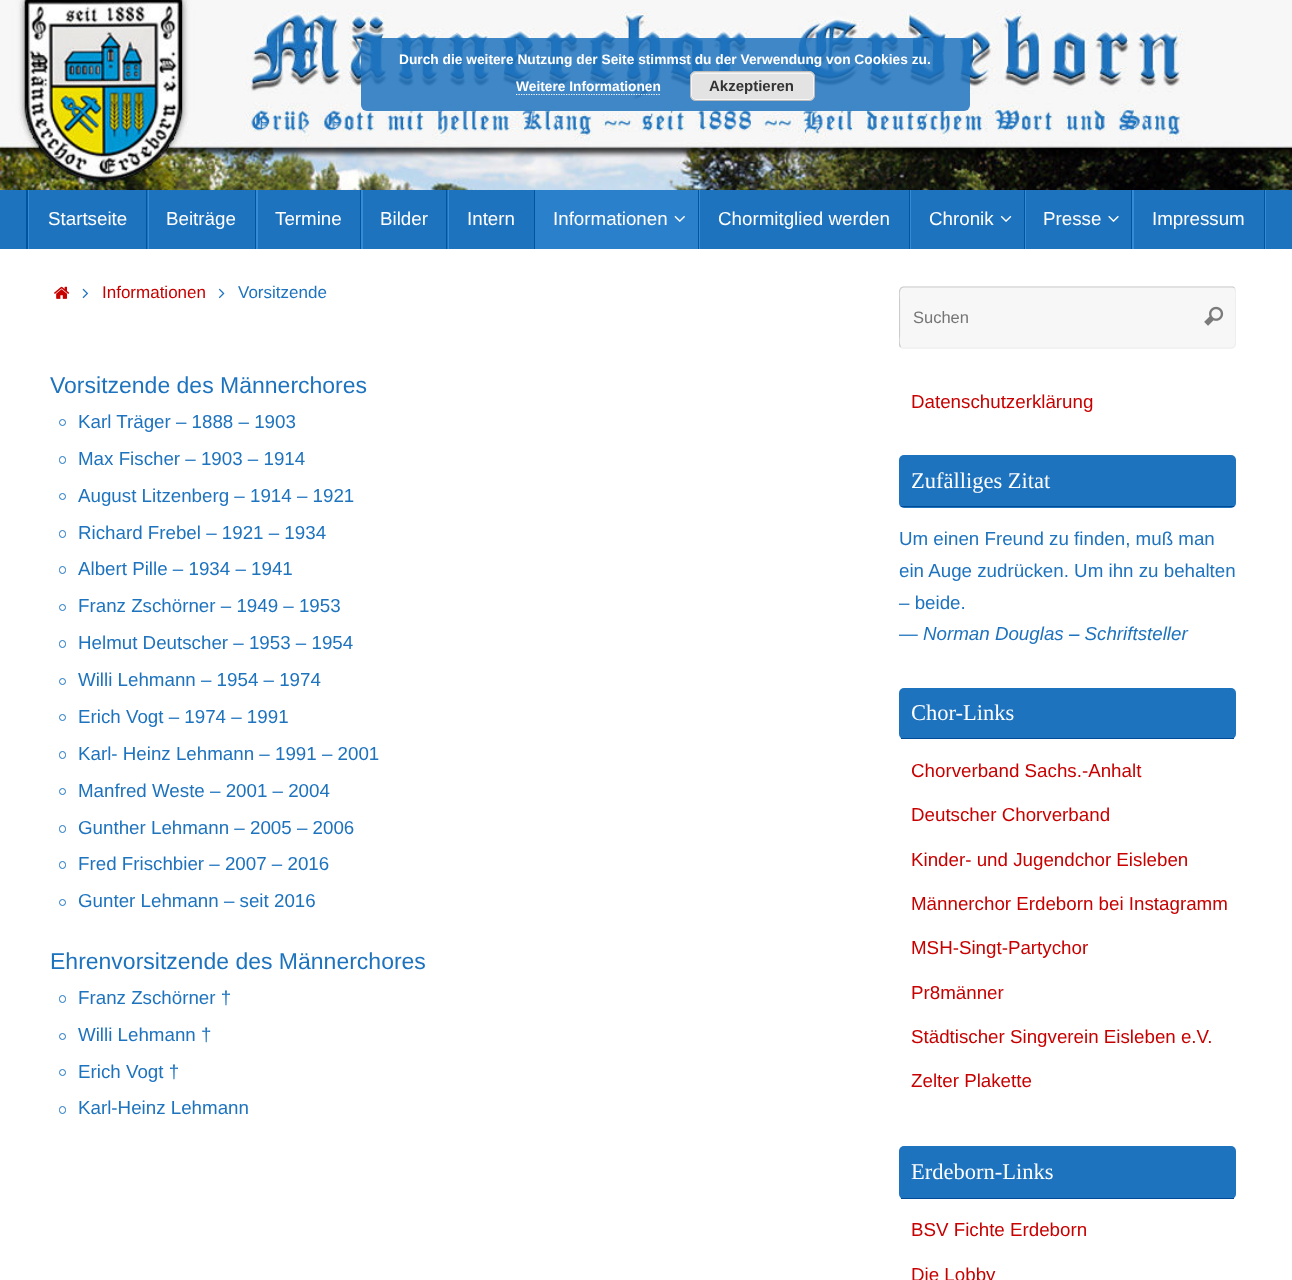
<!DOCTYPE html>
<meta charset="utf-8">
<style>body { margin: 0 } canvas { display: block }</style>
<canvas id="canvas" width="1292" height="1280"></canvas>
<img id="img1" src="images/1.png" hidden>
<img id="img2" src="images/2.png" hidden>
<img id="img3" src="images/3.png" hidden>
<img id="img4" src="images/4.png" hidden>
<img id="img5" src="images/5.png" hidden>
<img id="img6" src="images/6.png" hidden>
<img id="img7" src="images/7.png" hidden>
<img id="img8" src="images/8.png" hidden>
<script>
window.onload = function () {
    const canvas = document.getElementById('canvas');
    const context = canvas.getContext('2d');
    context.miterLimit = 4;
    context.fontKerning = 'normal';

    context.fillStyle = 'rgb(255, 255, 255)';
    context.fillRect(0, 0, 1292, 1280);
    context.drawImage(document.getElementById('img1'), 0, 0, 1292, 190);
    context.fillStyle = 'rgba(30, 115, 190, 0.85)';
    context.beginPath();
    context.roundRect(361, 38, 609, 73, 6);
    context.fill();
    context.beginPath();
    context.moveTo(516, 94.5);
    context.lineTo(660, 94.5);
    context.strokeStyle = 'rgb(255, 255, 255)';
    context.lineWidth = 1.2;
    context.setLineDash([1.25, 1.25]);
    context.stroke();
    context.fillStyle = 'rgb(227, 227, 227)';
    context.beginPath();
    context.roundRect(690, 71, 125, 30, 6);
    context.fill();
    context.beginPath();
    context.roundRect(691.5, 73.5, 122, 26, 4.5);
    context.strokeStyle = 'rgb(246, 246, 246)';
    context.lineWidth = 1;
    context.setLineDash([]);
    context.stroke();
    context.beginPath();
    context.roundRect(690.5, 71.5, 124, 29, 5.5);
    context.strokeStyle = 'rgb(187, 187, 187)';
    context.stroke();
    context.fillStyle = 'rgb(30, 115, 190)';
    context.fillRect(0, 190, 1292, 59);
    context.fillStyle = 'rgb(0, 85, 160)';
    context.beginPath();
    context.moveTo(26, 190);
    context.lineTo(26, 249);
    context.lineTo(1264, 249);
    context.lineTo(28, 249);
    context.lineTo(28, 190);
    context.closePath();
    context.fill();
    context.fillStyle = 'rgb(54, 139, 214)';
    context.fillRect(28, 190, 1, 59);
    context.beginPath();
    context.moveTo(30, 249);
    context.lineTo(149, 249);
    context.lineTo(149, 190);
    context.lineTo(148, 190);
    context.lineTo(148, 249);
    context.closePath();
    context.fill();
    context.fillStyle = 'rgb(0, 85, 160)';
    context.fillRect(146, 190, 1, 59);
    context.fillStyle = 'rgb(54, 139, 214)';
    context.beginPath();
    context.moveTo(149, 249);
    context.lineTo(258, 249);
    context.lineTo(258, 190);
    context.lineTo(256, 190);
    context.lineTo(256, 249);
    context.closePath();
    context.fill();
    context.fillStyle = 'rgb(0, 85, 160)';
    context.fillRect(255, 190, 1, 59);
    context.fillStyle = 'rgb(54, 139, 214)';
    context.beginPath();
    context.moveTo(258, 249);
    context.lineTo(363, 249);
    context.lineTo(363, 190);
    context.lineTo(361, 190);
    context.lineTo(361, 249);
    context.closePath();
    context.fill();
    context.fillStyle = 'rgb(0, 85, 160)';
    context.fillRect(360, 190, 1, 59);
    context.fillStyle = 'rgb(54, 139, 214)';
    context.beginPath();
    context.moveTo(363, 249);
    context.lineTo(449, 249);
    context.lineTo(449, 190);
    context.lineTo(448, 190);
    context.lineTo(448, 249);
    context.closePath();
    context.fill();
    context.fillStyle = 'rgb(0, 85, 160)';
    context.fillRect(446, 190, 1, 59);
    context.fillRect(534, 190, 1, 59);
    context.fillStyle = 'rgb(43, 128, 203)';
    context.fillRect(535, 190, 163, 59);
    context.fillStyle = 'rgb(54, 139, 214)';
    context.beginPath();
    context.moveTo(536, 249);
    context.lineTo(700, 249);
    context.lineTo(700, 190);
    context.lineTo(699, 190);
    context.lineTo(699, 249);
    context.closePath();
    context.fill();
    context.fillStyle = 'rgb(0, 85, 160)';
    context.fillRect(698, 190, 1, 59);
    context.drawImage(document.getElementById('img2'), 674, 215, 11, 7);
    context.fillStyle = 'rgb(54, 139, 214)';
    context.beginPath();
    context.moveTo(700, 249);
    context.lineTo(911, 249);
    context.lineTo(911, 190);
    context.lineTo(910, 190);
    context.lineTo(910, 249);
    context.closePath();
    context.fill();
    context.fillStyle = 'rgb(0, 85, 160)';
    context.fillRect(909, 190, 1, 59);
    context.fillStyle = 'rgb(54, 139, 214)';
    context.beginPath();
    context.moveTo(911, 249);
    context.lineTo(1026, 249);
    context.lineTo(1026, 190);
    context.lineTo(1025, 190);
    context.lineTo(1025, 249);
    context.closePath();
    context.fill();
    context.fillStyle = 'rgb(0, 85, 160)';
    context.fillRect(1024, 190, 1, 59);
    context.drawImage(document.getElementById('img3'), 1000, 215, 12, 7);
    context.fillStyle = 'rgb(54, 139, 214)';
    context.beginPath();
    context.moveTo(1026, 249);
    context.lineTo(1134, 249);
    context.lineTo(1134, 190);
    context.lineTo(1132, 190);
    context.lineTo(1132, 249);
    context.closePath();
    context.fill();
    context.fillStyle = 'rgb(0, 85, 160)';
    context.fillRect(1131, 190, 1, 59);
    context.drawImage(document.getElementById('img4'), 1108, 215, 11, 7);
    context.fillStyle = 'rgb(54, 139, 214)';
    context.beginPath();
    context.moveTo(1134, 249);
    context.lineTo(1266, 249);
    context.lineTo(1266, 190);
    context.lineTo(1265, 190);
    context.lineTo(1265, 249);
    context.closePath();
    context.fill();
    context.fillStyle = 'rgb(0, 85, 160)';
    context.fillRect(1264, 190, 1, 59);
    context.drawImage(document.getElementById('img5'), 54, 286, 16, 13);
    context.drawImage(document.getElementById('img6'), 82, 288, 7, 11);
    context.drawImage(document.getElementById('img7'), 218, 288, 7, 11);
    context.beginPath();
    context.arc(62.5, 422.5, 3, 0, 2 * Math.PI);
    context.strokeStyle = 'rgb(30, 115, 190)';
    context.stroke();
    context.beginPath();
    context.roundRect(59.5, 456.5, 6, 7, 3);
    context.stroke();
    context.beginPath();
    context.arc(62.5, 496.5, 3, 0, 2 * Math.PI);
    context.stroke();
    context.beginPath();
    context.roundRect(59.5, 530.5, 6, 7, 3);
    context.stroke();
    context.beginPath();
    context.roundRect(59.5, 566.5, 6, 7, 3);
    context.stroke();
    context.beginPath();
    context.arc(62.5, 607.5, 3, 0, 2 * Math.PI);
    context.stroke();
    context.beginPath();
    context.roundRect(59.5, 640.5, 6, 7, 3);
    context.stroke();
    context.beginPath();
    context.arc(62.5, 681.5, 3, 0, 2 * Math.PI);
    context.stroke();
    context.beginPath();
    context.arc(62.5, 717.5, 3, 0, 2 * Math.PI);
    context.stroke();
    context.beginPath();
    context.roundRect(59.5, 751.5, 6, 7, 3);
    context.stroke();
    context.beginPath();
    context.arc(62.5, 791.5, 3, 0, 2 * Math.PI);
    context.stroke();
    context.beginPath();
    context.roundRect(59.5, 825.5, 6, 7, 3);
    context.stroke();
    context.beginPath();
    context.roundRect(59.5, 861.5, 6, 7, 3);
    context.stroke();
    context.beginPath();
    context.arc(62.5, 902.5, 3, 0, 2 * Math.PI);
    context.stroke();
    context.beginPath();
    context.roundRect(59.5, 995.5, 6, 7, 3);
    context.stroke();
    context.beginPath();
    context.arc(62.5, 1036.5, 3, 0, 2 * Math.PI);
    context.stroke();
    context.beginPath();
    context.arc(62.5, 1072.5, 3, 0, 2 * Math.PI);
    context.stroke();
    context.beginPath();
    context.roundRect(59.5, 1106.5, 6, 7, 3);
    context.stroke();
    context.fillStyle = 'rgb(247, 247, 247)';
    context.beginPath();
    context.roundRect(899, 286, 337, 63, 5);
    context.fill();
    context.save();
    context.beginPath();
    context.rect(899, 286, 337, 63);
    context.clip();
    context.beginPath();
    context.moveTo(1234.5, 288);
    context.bezierCurveTo(1237, 291, 1235.5, 298, 1235.5, 300);
    context.lineTo(1235.5, 335);
    context.bezierCurveTo(1235.5, 338, 1237.5, 348, 1231, 348);
    context.lineTo(902, 348);
    context.lineTo(900.5, 347);
    context.strokeStyle = 'rgb(238, 238, 238)';
    context.lineWidth = 1.2;
    context.stroke();
    context.beginPath();
    context.moveTo(900.5, 347);
    context.bezierCurveTo(898, 344, 899.5, 337, 899.5, 335);
    context.lineTo(899.5, 300);
    context.bezierCurveTo(899.5, 297, 897.5, 287, 904, 287);
    context.lineTo(1233, 287);
    context.lineTo(1234.5, 288);
    context.strokeStyle = 'rgb(204, 204, 204)';
    context.stroke();
    context.restore();
    context.drawImage(document.getElementById('img8'), 1204, 306, 20, 20);
    context.fillStyle = 'rgb(30, 115, 190)';
    context.beginPath();
    context.roundRect(899, 455, 337, 53, 5);
    context.fill();
    context.fillStyle = 'rgb(0, 75, 150)';
    context.fillRect(901, 506, 333, 1);
    context.fillStyle = 'rgb(30, 115, 190)';
    context.beginPath();
    context.roundRect(899, 688, 337, 51, 5);
    context.fill();
    context.fillStyle = 'rgb(0, 75, 150)';
    context.fillRect(901, 738, 333, 1);
    context.fillStyle = 'rgb(30, 115, 190)';
    context.beginPath();
    context.roundRect(899, 1146, 337, 53, 5);
    context.fill();
    context.fillStyle = 'rgb(0, 75, 150)';
    context.fillRect(901, 1198, 333, 1);
    context.font = 'bold 13.75px Liberation Sans';
    context.fillStyle = 'rgb(255, 255, 255)';
    context.fillText('Durch die weitere Nutzung der Seite stimmst du der Verwendung von Cookies zu.', 399, 64);
    context.fillText('Weitere Informationen', 516, 91);
    context.font = 'bold 15px Liberation Sans';
    context.fillStyle = 'rgb(51, 51, 51)';
    context.fillText('Akzeptieren', 709, 91);
    context.font = '18.75px Liberation Sans';
    context.fillStyle = 'rgb(255, 255, 255)';
    context.fillText('Startseite', 48, 225);
    context.fillText('Beiträge', 166, 225);
    context.fillText('Termine', 275, 225);
    context.fillText('Bilder', 380, 225);
    context.fillText('Intern', 467, 225);
    context.fillText('Informationen', 553, 225);
    context.fillText('Chormitglied werden', 718, 225);
    context.fillText('Chronik', 929, 225);
    context.fillText('Presse', 1043, 225);
    context.fillText('Impressum', 1152, 225);
    context.font = '17px Liberation Sans';
    context.fillStyle = 'rgb(199, 0, 0)';
    context.fillText('Informationen', 102, 298);
    context.fillStyle = 'rgb(30, 115, 190)';
    context.fillText('Vorsitzende', 238, 298);
    context.font = '23px Liberation Sans';
    context.fillText('Vorsitzende des Männerchores', 50, 393);
    context.font = '18.75px Liberation Sans';
    context.fillText('Karl Träger – 1888 – 1903', 78, 428);
    context.fillText('Max Fischer – 1903 – 1914', 78, 465);
    context.fillText('August Litzenberg – 1914 – 1921', 78, 502);
    context.fillText('Richard Frebel – 1921 – 1934', 78, 539);
    context.fillText('Albert Pille – 1934 – 1941', 78, 575);
    context.fillText('Franz Zschörner – 1949 – 1953', 78, 612);
    context.fillText('Helmut Deutscher – 1953 – 1954', 78, 649);
    context.fillText('Willi Lehmann – 1954 – 1974', 78, 686);
    context.fillText('Erich Vogt – 1974 – 1991', 78, 723);
    context.fillText('Karl- Heinz Lehmann – 1991 – 2001', 78, 760);
    context.fillText('Manfred Weste – 2001 – 2004', 78, 797);
    context.fillText('Gunther Lehmann – 2005 – 2006', 78, 834);
    context.fillText('Fred Frischbier – 2007 – 2016', 78, 870);
    context.fillText('Gunter Lehmann – seit 2016', 78, 907);
    context.font = '23px Liberation Sans';
    context.fillText('Ehrenvorsitzende des Männerchores', 50, 969);
    context.font = '18.75px Liberation Sans';
    context.fillText('Franz Zschörner †', 78, 1004);
    context.fillText('Willi Lehmann †', 78, 1041);
    context.fillText('Erich Vogt †', 78, 1078);
    context.fillText('Karl-Heinz Lehmann', 78, 1114);
    context.font = '16.5px Liberation Sans';
    context.fillStyle = 'rgb(117, 117, 117)';
    context.fillText('Suchen', 913, 323);
    context.font = '18.75px Liberation Sans';
    context.fillStyle = 'rgb(199, 0, 0)';
    context.fillText('Datenschutzerklärung', 911, 408);
    context.font = '22.5px Liberation Serif';
    context.fillStyle = 'rgb(255, 255, 255)';
    context.fillText('Zufälliges Zitat', 911, 488);
    context.font = '18.75px Liberation Sans';
    context.fillStyle = 'rgb(30, 115, 190)';
    context.fillText('Um einen Freund zu finden, muß man', 899, 545);
    context.fillText('ein Auge zudrücken. Um ihn zu behalten', 899, 577);
    context.fillText('– beide.', 899, 609);
    context.fillText('—', 899, 640);
    context.font = 'italic 18.75px Liberation Sans';
    context.fillText('Norman Douglas – Schriftsteller', 923, 640);
    context.font = '22.5px Liberation Serif';
    context.fillStyle = 'rgb(255, 255, 255)';
    context.fillText('Chor-Links', 911, 720);
    context.font = '18.75px Liberation Sans';
    context.fillStyle = 'rgb(199, 0, 0)';
    context.fillText('Chorverband Sachs.-Anhalt', 911, 777);
    context.fillText('Deutscher Chorverband', 911, 821);
    context.fillText('Kinder- und Jugendchor Eisleben', 911, 866);
    context.fillText('Männerchor Erdeborn bei Instagramm', 911, 910);
    context.fillText('MSH-Singt-Partychor', 911, 954);
    context.fillText('Pr8männer', 911, 999);
    context.fillText('Städtischer Singverein Eisleben e.V.', 911, 1043);
    context.fillText('Zelter Plakette', 911, 1087);
    context.font = '22.5px Liberation Serif';
    context.fillStyle = 'rgb(255, 255, 255)';
    context.fillText('Erdeborn-Links', 911, 1179);
    context.font = '18.75px Liberation Sans';
    context.fillStyle = 'rgb(199, 0, 0)';
    context.fillText('BSV Fichte Erdeborn', 911, 1236);
    context.fillText('Die Lobby', 911, 1281);
};
</script>
